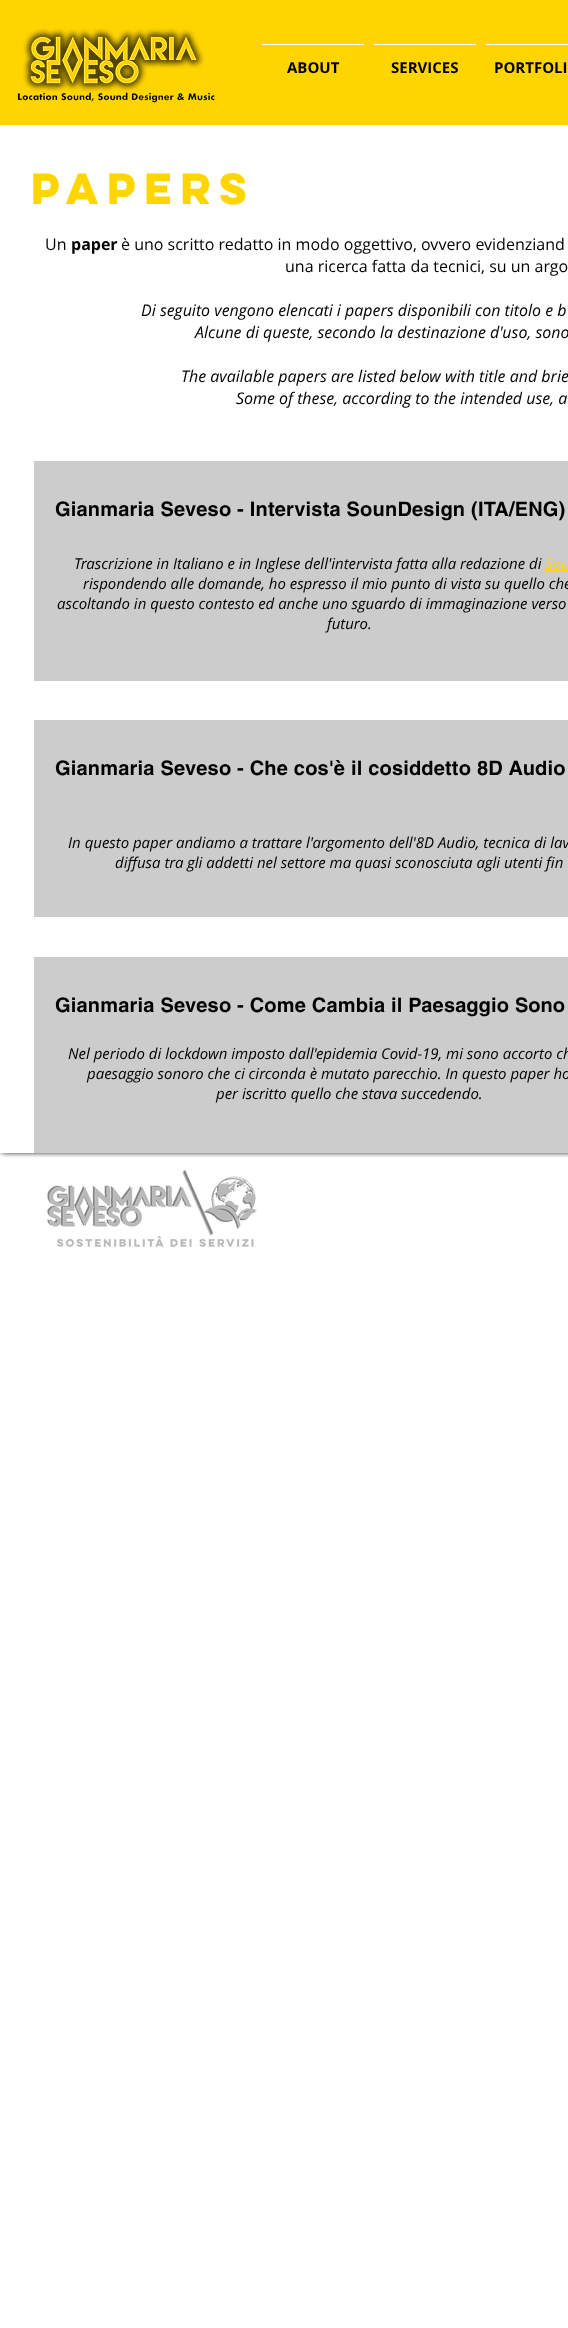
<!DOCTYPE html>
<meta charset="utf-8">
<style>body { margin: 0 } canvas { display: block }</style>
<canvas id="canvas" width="568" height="2328"></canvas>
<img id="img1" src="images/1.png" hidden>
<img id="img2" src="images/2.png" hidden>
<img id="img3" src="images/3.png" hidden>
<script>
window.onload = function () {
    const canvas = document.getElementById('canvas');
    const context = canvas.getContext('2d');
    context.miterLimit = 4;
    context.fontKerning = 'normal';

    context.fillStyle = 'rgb(255, 255, 255)';
    context.fillRect(0, 0, 568, 2328);
    context.save();
    context.beginPath();
    context.rect(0, 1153, 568, 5);
    context.clip();
    context.fillStyle = 'rgba(0, 0, 0, 0.6)';
    context.filter = 'blur(2px)';
    context.beginPath();
    context.roundRect(0, 126, 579, 1028, 5);
    context.fill();
    context.filter = 'none';
    context.restore();
    context.fillStyle = 'rgb(255, 213, 0)';
    context.fillRect(0, 0, 568, 125);
    context.drawImage(document.getElementById('img1'), 22, 28, 183, 64);
    context.drawImage(document.getElementById('img2'), 17, 92, 198, 11);
    context.fillStyle = 'rgb(255, 255, 255)';
    context.fillRect(262, 44, 102, 1);
    context.fillRect(374, 44, 102, 1);
    context.fillRect(486, 44, 82, 1);
    context.fillRect(0, 125, 4, 5);
    context.fillStyle = 'rgb(204, 204, 204)';
    context.fillRect(34, 461, 534, 220);
    context.fillStyle = 'rgb(255, 213, 0)';
    context.fillRect(545, 570, 23, 1);
    context.fillStyle = 'rgb(204, 204, 204)';
    context.fillRect(34, 720, 534, 197);
    context.fillRect(34, 957, 534, 196);
    context.fillStyle = 'rgb(255, 255, 255)';
    context.fillRect(0, 1148, 5, 5);
    context.drawImage(document.getElementById('img3'), 47, 1170, 210, 77);
    context.font = 'bold 15px Open Sans';
    context.fillStyle = 'rgb(0, 0, 0)';
    context.fillText('ABOUT', 287, 73);
    context.fillText('SERVICES', 391, 73);
    context.fillText('PORTFOLI', 494, 73);
    context.font = 'bold 39px "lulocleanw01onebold"';
    context.fillStyle = 'rgb(255, 213, 0)';
    context.fillText('papers', 31, 204);
    context.font = '16px Open Sans';
    context.fillStyle = 'rgb(0, 0, 0)';
    context.fillText('Un', 45, 250);
    context.font = 'bold 16px Open Sans';
    context.fillText('paper', 71, 250);
    context.font = '16px Open Sans';
    context.fillText('è uno scritto redatto in modo oggettivo, ovvero evidenziand', 121, 250);
    context.fillText('una ricerca fatta da tecnici, su un argo', 285, 272);
    context.font = 'italic 16px Open Sans';
    context.fillText('Di seguito vengono elencati i papers disponibili con titolo e b', 141, 316);
    context.fillText('Alcune di queste, secondo la destinazione d\'uso, sono', 195, 338);
    context.fillText('The available papers are listed below with title and brie', 181, 382);
    context.fillText('Some of these, according to the intended use, a', 236, 404);
    context.letterSpacing = '0.2px';
    context.font = 'bold 20px helvetica';
    context.fillText('Gianmaria Seveso - Intervista SounDesign (ITA/ENG)', 55, 516);
    context.letterSpacing = '0px';
    context.font = 'italic 15px Open Sans';
    context.fillText('Trascrizione in Italiano e in Inglese dell\'intervista fatta alla redazione di', 74, 569);
    context.fillStyle = 'rgb(255, 213, 0)';
    context.fillText('Sou', 545, 569);
    context.fillStyle = 'rgb(0, 0, 0)';
    context.fillText('rispondendo alle domande, ho espresso il mio punto di vista su quello che', 83, 589);
    context.fillText('ascoltando in questo contesto ed anche uno sguardo di immaginazione verso', 57, 609);
    context.fillText('futuro.', 327, 629);
    context.letterSpacing = '0.2px';
    context.font = 'bold 20px helvetica';
    context.fillText('Gianmaria Seveso - Che cos\'è il cosiddetto 8D Audio', 55, 775);
    context.letterSpacing = '0px';
    context.font = 'italic 15px Open Sans';
    context.fillText('In questo paper andiamo a trattare l\'argomento dell\'8D Audio, tecnica di lav', 68, 848);
    context.fillText('diffusa tra gli addetti nel settore ma quasi sconosciuta agli utenti fin', 115, 868);
    context.letterSpacing = '0.2px';
    context.font = 'bold 20px helvetica';
    context.fillText('Gianmaria Seveso - Come Cambia il Paesaggio', 55, 1012);
    context.letterSpacing = '0px';
    context.fillText('Sono', 515, 1012);
    context.font = 'italic 15px Open Sans';
    context.fillText('Nel periodo di lockdown imposto dall\'epidemia Covid-19, mi sono accorto ch', 68, 1059);
    context.fillText('paesaggio sonoro che ci circonda è mutato parecchio. In questo paper ho', 87, 1079);
    context.fillText('per iscritto quello che stava succedendo.', 216, 1099);
};
</script>
